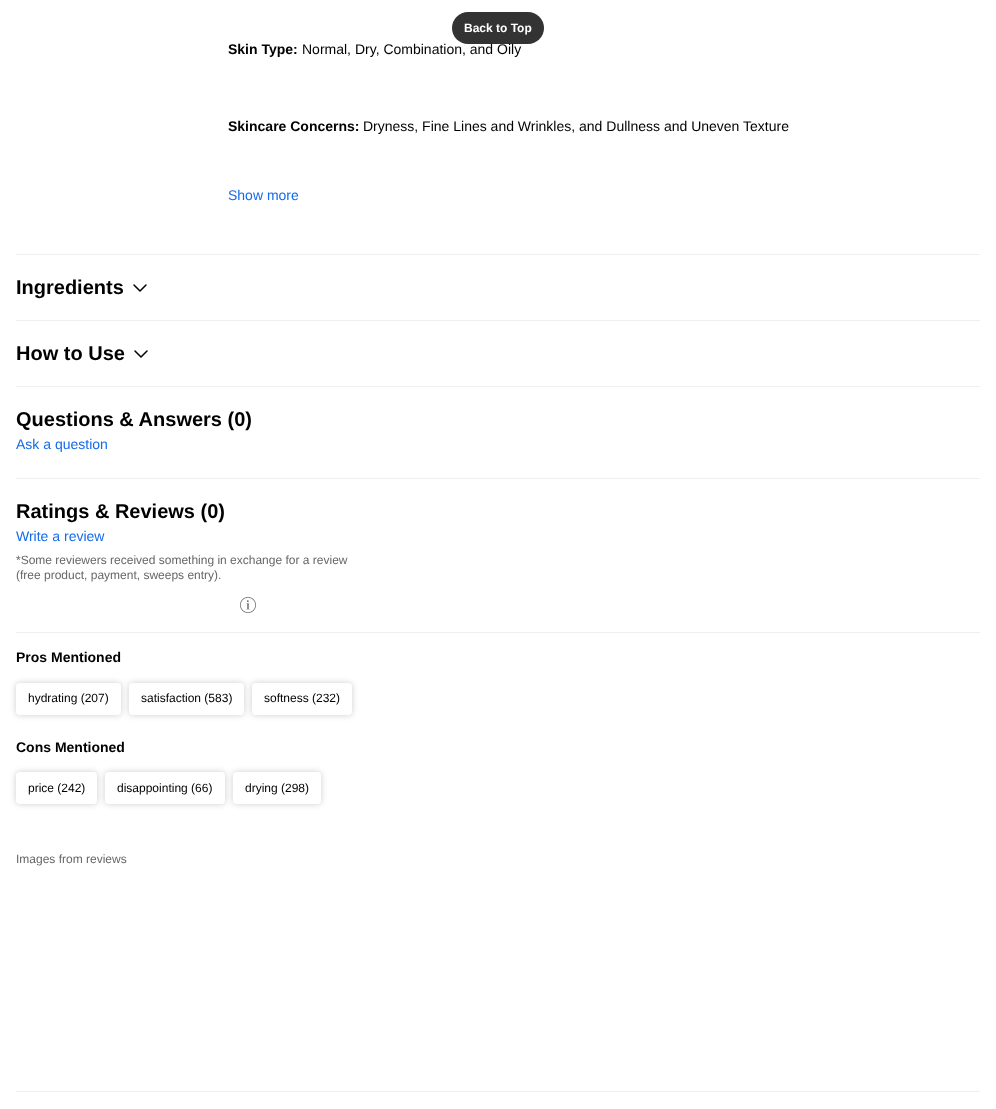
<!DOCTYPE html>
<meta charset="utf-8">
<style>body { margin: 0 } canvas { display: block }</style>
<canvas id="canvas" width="996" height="1109"></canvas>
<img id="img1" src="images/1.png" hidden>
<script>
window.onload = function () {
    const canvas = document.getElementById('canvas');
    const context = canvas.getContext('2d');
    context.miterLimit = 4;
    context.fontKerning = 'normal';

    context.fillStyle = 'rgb(255, 255, 255)';
    context.fillRect(0, 0, 996, 1109);
    context.fillStyle = 'rgb(239, 239, 239)';
    context.fillRect(16, 254, 964, 1);
    context.beginPath();
    context.moveTo(134, 285);
    context.lineTo(140, 291);
    context.lineTo(146, 285);
    context.strokeStyle = 'rgb(0, 0, 0)';
    context.lineWidth = 1.5;
    context.lineCap = 'round';
    context.lineJoin = 'round';
    context.stroke();
    context.fillRect(16, 320, 964, 1);
    context.beginPath();
    context.moveTo(135, 351);
    context.lineTo(141, 357);
    context.lineTo(147, 351);
    context.stroke();
    context.fillRect(16, 386, 964, 1);
    context.fillRect(16, 478, 964, 1);
    context.drawImage(document.getElementById('img1'), 240, 597, 16, 16);
    context.fillRect(16, 632, 964, 1);
    context.fillStyle = 'rgba(0, 0, 0, 0.2)';
    context.filter = 'blur(3px)';
    context.beginPath();
    context.roundRect(16, 683, 105, 32, 4);
    context.fill();
    context.filter = 'none';
    context.fillStyle = 'rgb(255, 255, 255)';
    context.beginPath();
    context.roundRect(16, 683, 105, 32, 4);
    context.fill();
    context.fillStyle = 'rgba(0, 0, 0, 0.2)';
    context.filter = 'blur(3px)';
    context.beginPath();
    context.roundRect(129, 683, 115, 32, 4);
    context.fill();
    context.filter = 'none';
    context.fillStyle = 'rgb(255, 255, 255)';
    context.beginPath();
    context.roundRect(129, 683, 115, 32, 4);
    context.fill();
    context.fillStyle = 'rgba(0, 0, 0, 0.2)';
    context.filter = 'blur(3px)';
    context.beginPath();
    context.roundRect(252, 683, 100, 32, 4);
    context.fill();
    context.filter = 'none';
    context.fillStyle = 'rgb(255, 255, 255)';
    context.beginPath();
    context.roundRect(252, 683, 100, 32, 4);
    context.fill();
    context.fillStyle = 'rgba(0, 0, 0, 0.2)';
    context.filter = 'blur(3px)';
    context.beginPath();
    context.roundRect(16, 772, 81, 32, 4);
    context.fill();
    context.filter = 'none';
    context.fillStyle = 'rgb(255, 255, 255)';
    context.beginPath();
    context.roundRect(16, 772, 81, 32, 4);
    context.fill();
    context.fillStyle = 'rgba(0, 0, 0, 0.2)';
    context.filter = 'blur(3px)';
    context.beginPath();
    context.roundRect(105, 772, 120, 32, 4);
    context.fill();
    context.filter = 'none';
    context.fillStyle = 'rgb(255, 255, 255)';
    context.beginPath();
    context.roundRect(105, 772, 120, 32, 4);
    context.fill();
    context.fillStyle = 'rgba(0, 0, 0, 0.2)';
    context.filter = 'blur(3px)';
    context.beginPath();
    context.roundRect(233, 772, 88, 32, 4);
    context.fill();
    context.filter = 'none';
    context.fillStyle = 'rgb(255, 255, 255)';
    context.beginPath();
    context.roundRect(233, 772, 88, 32, 4);
    context.fill();
    context.fillStyle = 'rgb(239, 239, 239)';
    context.fillRect(16, 1091, 964, 1);
    context.font = 'bold 14px Liberation Sans';
    context.fillStyle = 'rgb(0, 0, 0)';
    context.fillText('Skin Type:', 228, 54);
    context.font = '14px Liberation Sans';
    context.fillText('Normal, Dry, Combination, and Oily', 302, 54);
    context.fillStyle = 'rgba(0, 0, 0, 0.8)';
    context.beginPath();
    context.roundRect(452, 12, 92, 32, 16);
    context.fill();
    context.font = 'bold 12px Liberation Sans';
    context.fillStyle = 'rgb(255, 255, 255)';
    context.fillText('Back to Top', 464, 32);
    context.font = 'bold 14px Liberation Sans';
    context.fillStyle = 'rgb(0, 0, 0)';
    context.fillText('Skincare Concerns:', 228, 131);
    context.font = '14px Liberation Sans';
    context.fillText('Dryness, Fine Lines and Wrinkles, and Dullness and Uneven Texture', 363, 131);
    context.fillStyle = 'rgb(19, 107, 234)';
    context.fillText('Show more', 228, 200);
    context.font = 'bold 20px Liberation Sans';
    context.fillStyle = 'rgb(0, 0, 0)';
    context.fillText('Ingredients', 16, 294);
    context.fillText('How to Use', 16, 360);
    context.fillText('Questions & Answers (0)', 16, 426);
    context.font = '14px Liberation Sans';
    context.fillStyle = 'rgb(19, 107, 234)';
    context.fillText('Ask a question', 16, 449);
    context.font = 'bold 20px Liberation Sans';
    context.fillStyle = 'rgb(0, 0, 0)';
    context.fillText('Ratings & Reviews (0)', 16, 518);
    context.font = '14px Liberation Sans';
    context.fillStyle = 'rgb(19, 107, 234)';
    context.fillText('Write a review', 16, 541);
    context.font = '12px Liberation Sans';
    context.fillStyle = 'rgb(102, 102, 102)';
    context.fillText('*Some reviewers received something in exchange for a review', 16, 564);
    context.fillText('(free product, payment, sweeps entry).', 16, 579);
    context.font = 'bold 14px Liberation Sans';
    context.fillStyle = 'rgb(0, 0, 0)';
    context.fillText('Pros Mentioned', 16, 662);
    context.font = '12px Liberation Sans';
    context.fillText('hydrating (207)', 28, 702);
    context.fillText('satisfaction (583)', 141, 702);
    context.fillText('softness (232)', 264, 702);
    context.font = 'bold 14px Liberation Sans';
    context.fillText('Cons Mentioned', 16, 752);
    context.font = '12px Liberation Sans';
    context.fillText('price (242)', 28, 792);
    context.fillText('disappointing (66)', 117, 792);
    context.fillText('drying (298)', 245, 792);
    context.fillStyle = 'rgb(102, 102, 102)';
    context.fillText('Images from reviews', 16, 863);
};
</script>
